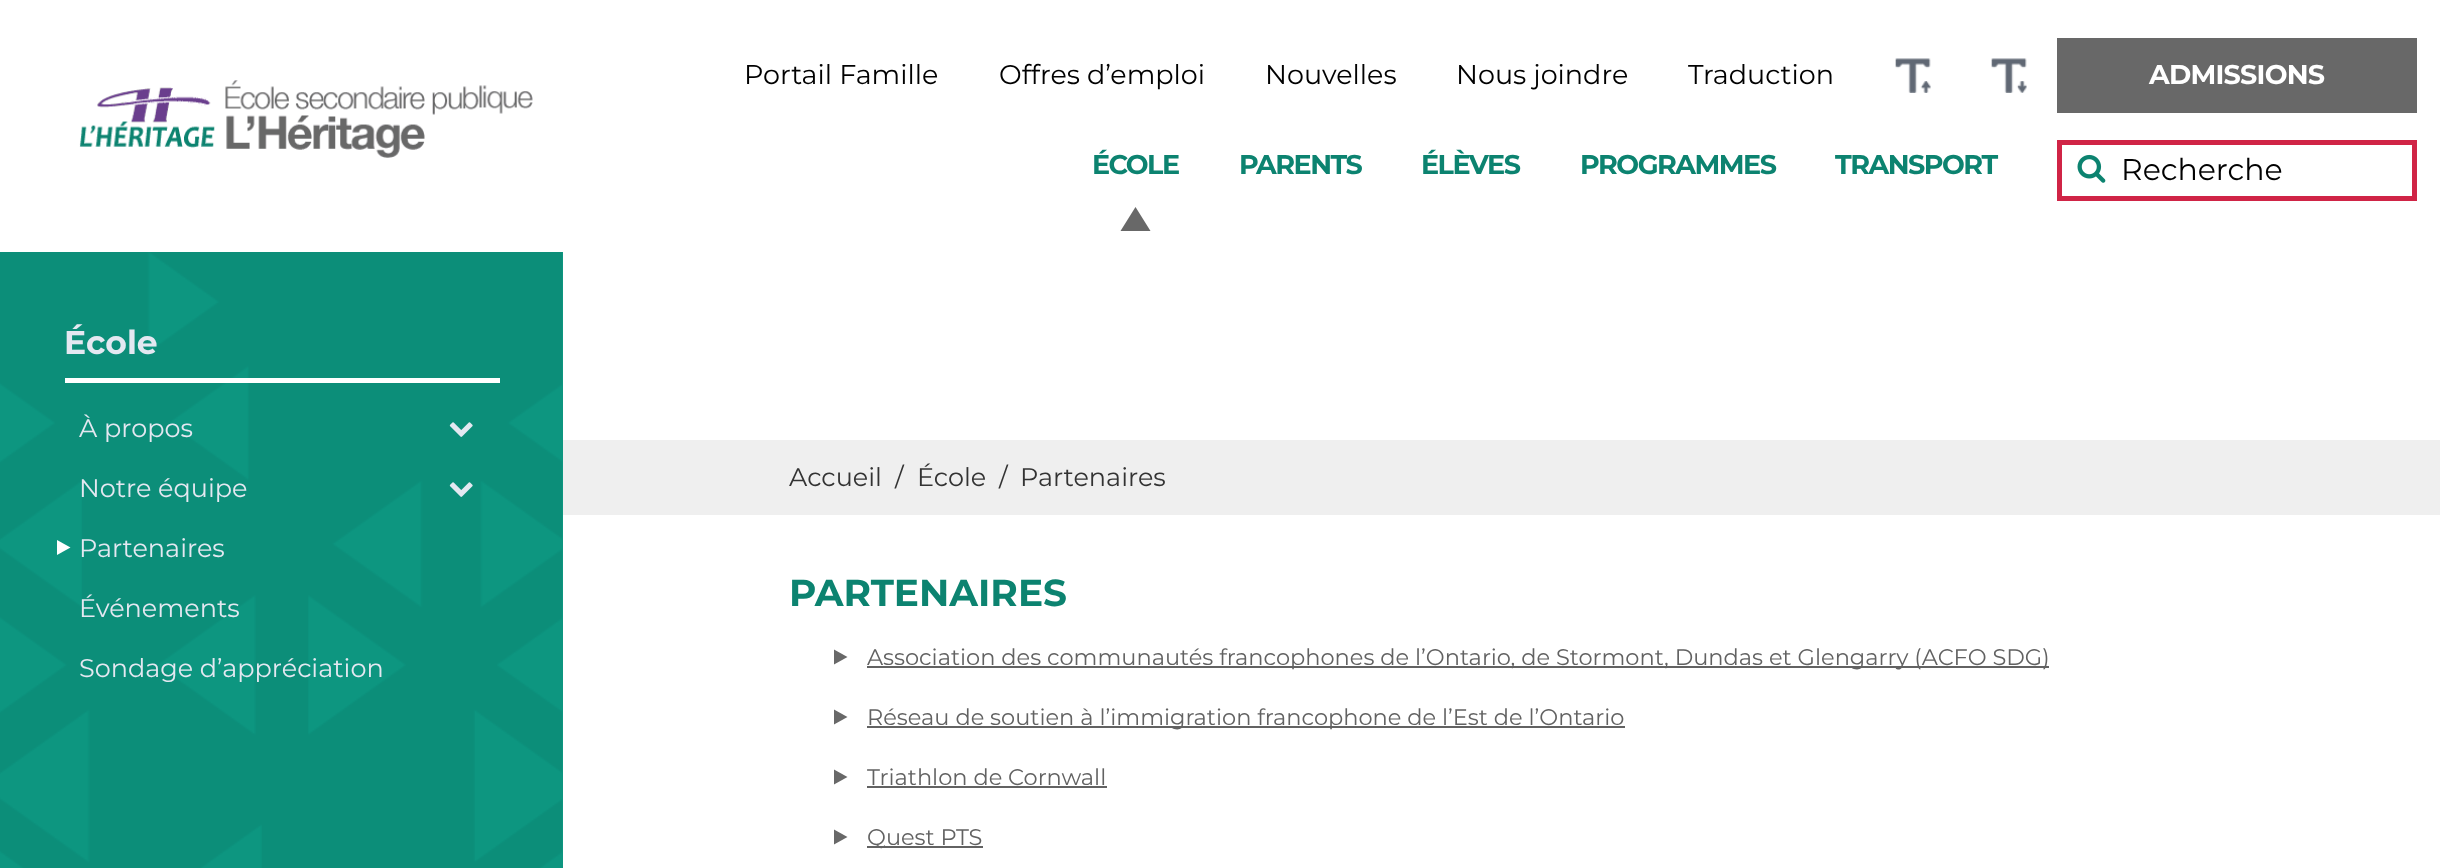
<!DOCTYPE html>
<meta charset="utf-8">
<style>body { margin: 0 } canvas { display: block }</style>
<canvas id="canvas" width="2440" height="868"></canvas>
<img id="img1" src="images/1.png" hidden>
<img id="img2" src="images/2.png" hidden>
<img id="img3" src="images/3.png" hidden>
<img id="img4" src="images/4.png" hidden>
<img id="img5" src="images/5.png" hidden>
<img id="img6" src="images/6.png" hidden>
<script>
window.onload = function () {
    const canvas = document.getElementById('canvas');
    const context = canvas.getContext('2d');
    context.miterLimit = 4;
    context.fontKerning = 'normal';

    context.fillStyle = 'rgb(255, 255, 255)';
    context.fillRect(0, 0, 2440, 868);
    context.drawImage(document.getElementById('img1'), 79, 80, 454, 78);
    context.drawImage(document.getElementById('img2'), 1895, 58, 36, 35);
    context.drawImage(document.getElementById('img3'), 1991, 58, 36, 35);
    context.fillStyle = 'rgb(104, 104, 104)';
    context.fillRect(2057, 38, 360, 75);
    context.beginPath();
    context.moveTo(1150.5, 231);
    context.lineTo(1120.5, 231);
    context.lineTo(1135.5, 207);
    context.closePath();
    context.fill();
    context.strokeStyle = 'rgb(208, 36, 70)';
    context.lineWidth = 5;
    context.strokeRect(2059.5, 142.5, 355, 56);
    context.drawImage(document.getElementById('img4'), 2077, 154, 29, 29);
    context.fillStyle = 'rgb(13, 150, 128)';
    context.fillRect(0, 252, 563, 616);
    context.drawImage(document.getElementById('img5'), 0, 252, 562, 616);
    context.fillStyle = 'rgb(255, 255, 255)';
    context.fillRect(65, 378, 435, 5);
    context.drawImage(document.getElementById('img6'), 449, 422, 24, 15);
    context.drawImage(document.getElementById('img6'), 449, 482, 24, 15);
    context.beginPath();
    context.moveTo(57, 555);
    context.lineTo(57, 540);
    context.lineTo(70.5, 547.5);
    context.closePath();
    context.fill();
    context.fillStyle = 'rgb(239, 239, 239)';
    context.fillRect(563, 440, 1877, 75);
    context.fillStyle = 'rgb(104, 104, 104)';
    context.beginPath();
    context.moveTo(834, 664.5);
    context.lineTo(834, 649.5);
    context.lineTo(847.5, 657);
    context.closePath();
    context.fill();
    context.fillStyle = 'rgb(98, 98, 98)';
    context.fillRect(867, 666, 1182, 2);
    context.fillStyle = 'rgb(104, 104, 104)';
    context.beginPath();
    context.moveTo(834, 724.5);
    context.lineTo(834, 709.5);
    context.lineTo(847.5, 717);
    context.closePath();
    context.fill();
    context.fillStyle = 'rgb(98, 98, 98)';
    context.fillRect(867, 726, 758, 2);
    context.fillStyle = 'rgb(104, 104, 104)';
    context.beginPath();
    context.moveTo(834, 784.5);
    context.lineTo(834, 769.5);
    context.lineTo(847.5, 777);
    context.closePath();
    context.fill();
    context.fillStyle = 'rgb(98, 98, 98)';
    context.fillRect(867, 786, 240, 2);
    context.fillStyle = 'rgb(104, 104, 104)';
    context.beginPath();
    context.moveTo(834, 844.5);
    context.lineTo(834, 829.5);
    context.lineTo(847.5, 837);
    context.closePath();
    context.fill();
    context.fillStyle = 'rgb(98, 98, 98)';
    context.fillRect(867, 846, 116, 2);
    context.font = '27px Montserrat';
    context.fillStyle = 'rgb(1, 1, 1)';
    context.fillText('Portail Famille', 744, 84);
    context.fillText('Offres d’emploi', 999, 84);
    context.fillText('Nouvelles', 1265, 84);
    context.fillText('Nous joindre', 1456, 84);
    context.fillText('Traduction', 1688, 84);
    context.letterSpacing = '-0.75px';
    context.font = 'bold 27px Montserrat';
    context.fillStyle = 'rgb(255, 255, 255)';
    context.fillText('ADMISSIONS', 2149, 84);
    context.letterSpacing = '-1.5px';
    context.fillStyle = 'rgb(12, 131, 112)';
    context.fillText('ÉCOLE', 1092, 174);
    context.fillText('PARENTS', 1239, 174);
    context.fillText('ÉLÈVES', 1421, 174);
    context.fillText('PROGRAMMES', 1580, 174);
    context.fillText('TRANSPORT', 1835, 174);
    context.letterSpacing = '0px';
    context.font = '30px Montserrat';
    context.fillStyle = 'rgb(1, 1, 1)';
    context.fillText('Recherche', 2121, 180);
    context.font = 'bold 33px Montserrat';
    context.fillStyle = 'rgb(228, 232, 241)';
    context.fillText('École', 64, 354);
    context.font = '25.5px Montserrat';
    context.fillText('À propos', 79, 437);
    context.fillText('Notre équipe', 79, 497);
    context.fillText('Partenaires', 79, 557);
    context.fillText('Événements', 79, 617);
    context.fillText('Sondage d’appréciation', 79, 677);
    context.fillStyle = 'rgb(51, 51, 51)';
    context.fillText('Accueil', 789, 486);
    context.fillText('/', 895, 486);
    context.fillText('École', 917, 486);
    context.fillText('/', 999, 486);
    context.fillText('Partenaires', 1020, 486);
    context.font = 'bold 37.5px Montserrat';
    context.fillStyle = 'rgb(12, 131, 112)';
    context.fillText('PARTENAIRES', 789, 606);
    context.font = '22.5px Montserrat';
    context.fillStyle = 'rgb(98, 98, 98)';
    context.fillText('Association des communautés francophones de l’Ontario, de Stormont, Dundas et Glengarry (ACFO SDG)', 867, 665);
    context.fillText('Réseau de soutien à l’immigration francophone de l’Est de l’Ontario', 867, 725);
    context.fillText('Triathlon de Cornwall', 867, 785);
    context.fillText('Quest PTS', 867, 845);
};
</script>
